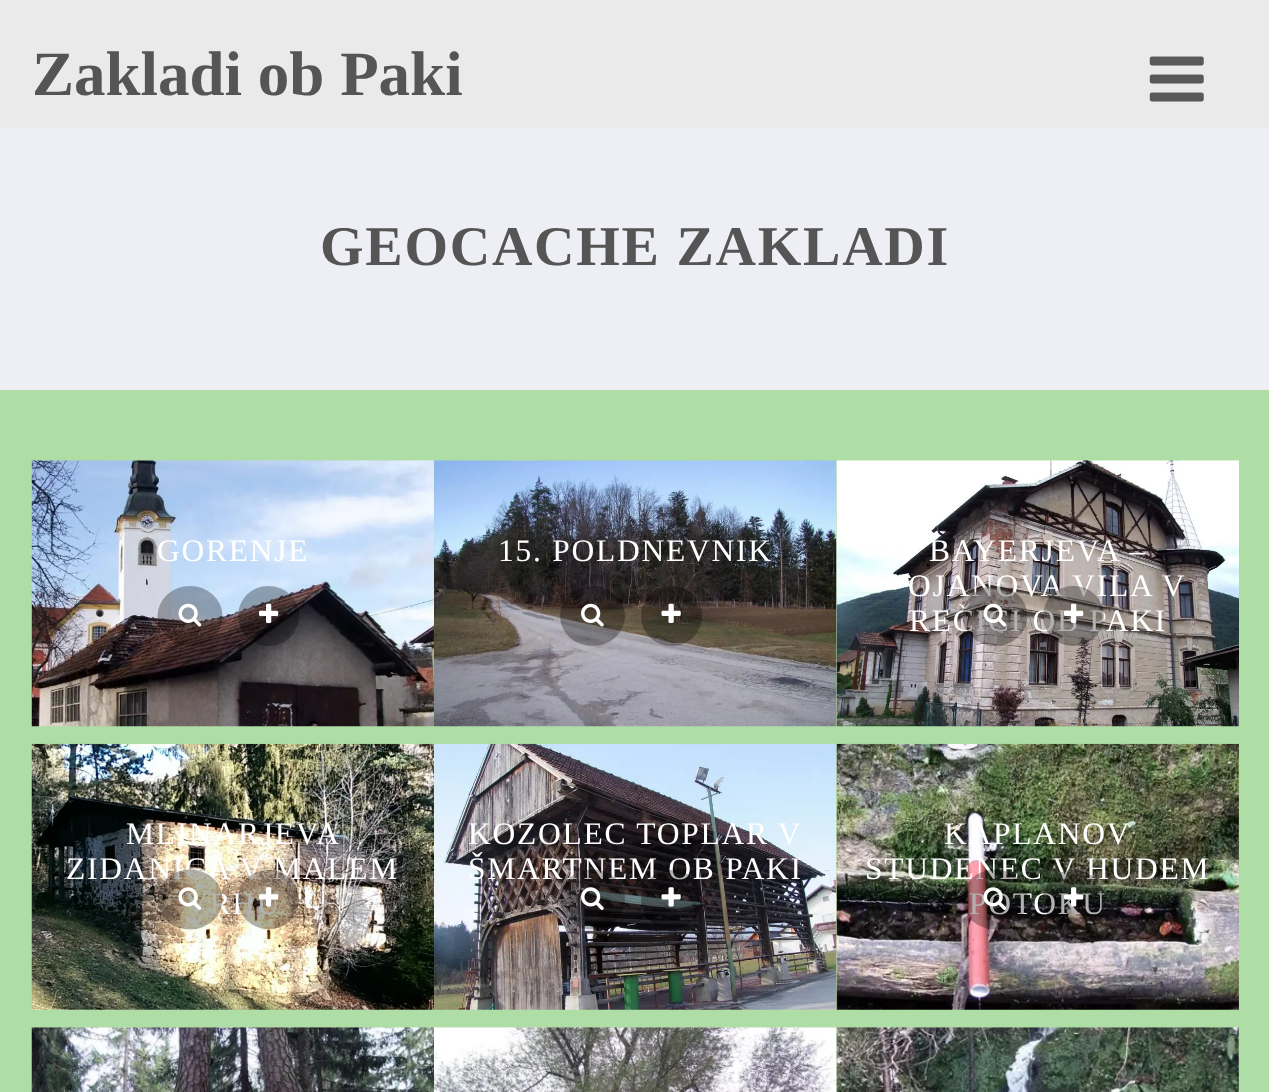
<!DOCTYPE html>
<meta charset="utf-8">
<style>body { margin: 0 } canvas { display: block }</style>
<canvas id="canvas" width="1269" height="1092"></canvas>
<img id="img1" src="images/1.png" hidden>
<img id="img2" src="images/2.png" hidden>
<img id="img3" src="images/3.png" hidden>
<img id="img4" src="images/4.png" hidden>
<img id="img5" src="images/5.png" hidden>
<img id="img6" src="images/6.png" hidden>
<img id="img7" src="images/7.png" hidden>
<img id="img8" src="images/8.png" hidden>
<img id="img9" src="images/11.png" hidden>
<img id="img10" src="images/14.png" hidden>
<img id="img11" src="images/17.png" hidden>
<img id="img12" src="images/20.png" hidden>
<img id="img13" src="images/21.png" hidden>
<img id="img14" src="images/22.png" hidden>
<img id="img15" src="images/10.png" hidden>
<img id="img16" src="images/9.png" hidden>
<img id="img17" src="images/13.png" hidden>
<img id="img18" src="images/12.png" hidden>
<img id="img19" src="images/16.png" hidden>
<img id="img20" src="images/15.png" hidden>
<img id="img21" src="images/19.png" hidden>
<img id="img22" src="images/18.png" hidden>
<script>
window.onload = function () {
    const canvas = document.getElementById('canvas');
    const context = canvas.getContext('2d');
    context.miterLimit = 4;
    context.fontKerning = 'normal';

    context.fillStyle = 'rgb(175, 221, 166)';
    context.fillRect(0, 0, 1269, 1092);
    context.fillStyle = 'rgb(234, 234, 234)';
    context.fillRect(0, 0, 1269, 128);
    context.drawImage(document.getElementById('img1'), 1149, 56, 55, 46);
    context.fillStyle = 'rgb(238, 239, 245)';
    context.fillRect(0, 128, 1269, 262);
    context.drawImage(document.getElementById('img2'), 31, 460, 403, 267);
    context.fillStyle = 'rgba(0, 0, 0, 0.3)';
    context.beginPath();
    context.ellipse(190, 616, 32.5, 30, 0, 0, 2 * Math.PI);
    context.fill();
    context.drawImage(document.getElementById('img3'), 178, 603, 24, 24);
    context.beginPath();
    context.roundRect(238, 586, 61, 60, 30);
    context.fill();
    context.drawImage(document.getElementById('img4'), 259, 603, 20, 20);
    context.drawImage(document.getElementById('img5'), 434, 460, 403, 267);
    context.beginPath();
    context.ellipse(592.5, 616, 32.5, 30, 0, 0, 2 * Math.PI);
    context.fill();
    context.drawImage(document.getElementById('img6'), 581, 603, 23, 24);
    context.beginPath();
    context.roundRect(641, 586, 61, 60, 30);
    context.fill();
    context.drawImage(document.getElementById('img7'), 661, 603, 20, 20);
    context.drawImage(document.getElementById('img8'), 836, 460, 403, 267);
    context.drawImage(document.getElementById('img9'), 31, 743, 403, 267);
    context.drawImage(document.getElementById('img10'), 434, 743, 403, 267);
    context.drawImage(document.getElementById('img11'), 836, 743, 403, 267);
    context.drawImage(document.getElementById('img12'), 31, 1027, 403, 65);
    context.drawImage(document.getElementById('img13'), 434, 1027, 403, 65);
    context.drawImage(document.getElementById('img14'), 836, 1027, 403, 65);
    context.font = 'bold 63px Liberation Serif';
    context.fillStyle = 'rgb(85, 85, 85)';
    context.fillText('Zakladi ob Paki', 32, 95);
    context.letterSpacing = '1.75px';
    context.font = 'bold 56px Liberation Serif';
    context.fillText('GEOCACHE ZAKLADI', 320, 265);
    context.font = '31.5px Liberation Serif';
    context.fillStyle = 'rgb(255, 255, 255)';
    context.fillText('GORENJE', 157, 561);
    context.fillText('15. POLDNEVNIK', 498, 561);
    context.fillText('BAYERJEVA –', 929, 561);
    context.fillText('OJANOVA VILA V', 908, 596);
    context.fillText('REČICI OB PAKI', 909, 631);
    context.fillStyle = 'rgba(0, 0, 0, 0.3)';
    context.beginPath();
    context.roundRect(1043, 586, 61, 60, 30);
    context.fill();
    context.drawImage(document.getElementById('img15'), 1064, 603, 20, 20);
    context.beginPath();
    context.ellipse(995, 616, 32.5, 30, 0, 0, 2 * Math.PI);
    context.fill();
    context.drawImage(document.getElementById('img16'), 983, 603, 24, 24);
    context.fillStyle = 'rgb(255, 255, 255)';
    context.fillText('MLINARJEVA', 126, 844);
    context.fillText('ZIDANICA V MALEM', 66, 879);
    context.fillText('VRHU', 185, 914);
    context.fillStyle = 'rgba(0, 0, 0, 0.3)';
    context.beginPath();
    context.roundRect(238, 870, 61, 59, 29.5);
    context.fill();
    context.drawImage(document.getElementById('img17'), 259, 887, 20, 20);
    context.beginPath();
    context.ellipse(190, 899.5, 32.5, 30, 0, 0, 2 * Math.PI);
    context.fill();
    context.drawImage(document.getElementById('img18'), 178, 887, 24, 23);
    context.fillStyle = 'rgb(255, 255, 255)';
    context.fillText('KOZOLEC TOPLAR V', 468, 844);
    context.fillText('ŠMARTNEM OB PAKI', 468, 879);
    context.fillStyle = 'rgba(0, 0, 0, 0.3)';
    context.beginPath();
    context.roundRect(641, 870, 61, 59, 29.5);
    context.fill();
    context.drawImage(document.getElementById('img19'), 661, 887, 20, 20);
    context.beginPath();
    context.ellipse(592.5, 899.5, 32.5, 30, 0, 0, 2 * Math.PI);
    context.fill();
    context.drawImage(document.getElementById('img20'), 581, 887, 23, 23);
    context.fillStyle = 'rgb(255, 255, 255)';
    context.fillText('KAPLANOV', 944, 844);
    context.fillText('STUDENEC V HUDEM', 865, 879);
    context.fillText('POTOKU', 969, 914);
    context.fillStyle = 'rgba(0, 0, 0, 0.3)';
    context.beginPath();
    context.roundRect(1043, 870, 61, 59, 29.5);
    context.fill();
    context.drawImage(document.getElementById('img21'), 1064, 887, 20, 20);
    context.beginPath();
    context.ellipse(995, 899.5, 32.5, 30, 0, 0, 2 * Math.PI);
    context.fill();
    context.drawImage(document.getElementById('img22'), 983, 887, 24, 23);
};
</script>
